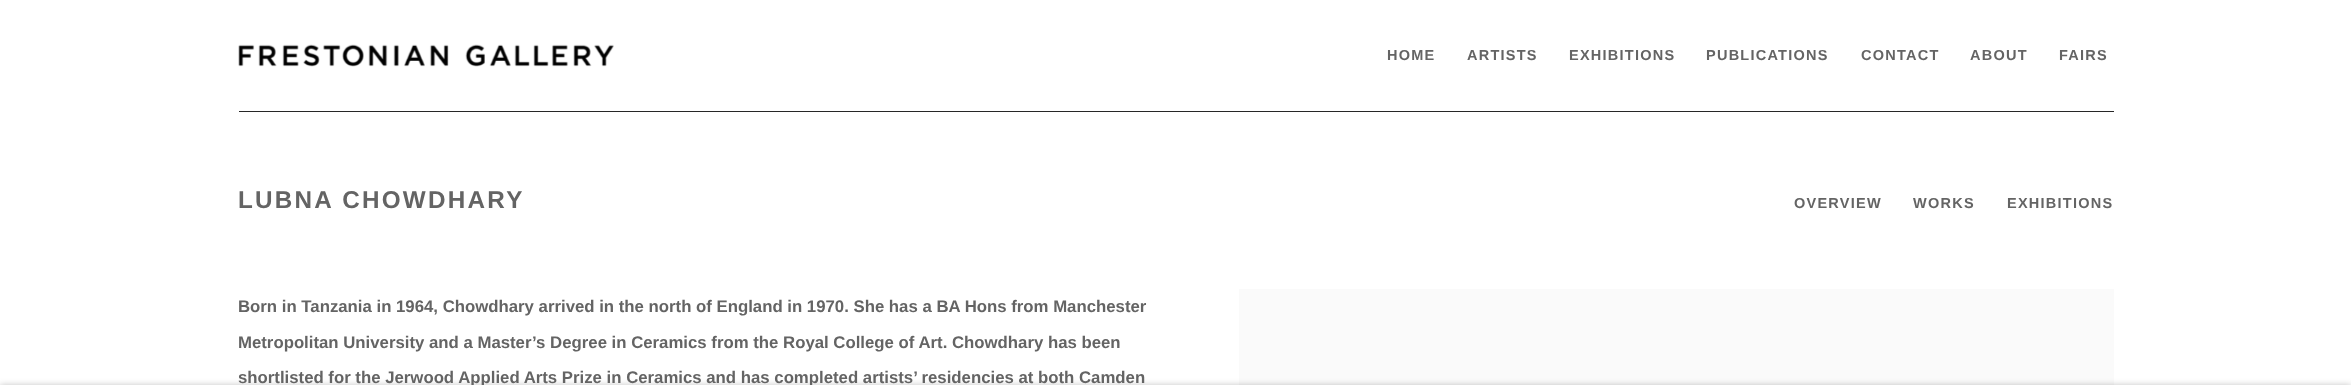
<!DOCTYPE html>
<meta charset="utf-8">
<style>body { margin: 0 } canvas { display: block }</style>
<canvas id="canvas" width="2351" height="385"></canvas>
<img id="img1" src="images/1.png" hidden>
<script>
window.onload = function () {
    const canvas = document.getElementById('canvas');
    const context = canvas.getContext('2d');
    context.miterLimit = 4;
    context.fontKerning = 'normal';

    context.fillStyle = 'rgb(255, 255, 255)';
    context.fillRect(0, 0, 2351, 385);
    context.fillStyle = 'rgb(39, 39, 39)';
    context.fillRect(239, 111, 1875, 1);
    context.drawImage(document.getElementById('img1'), 238, 44, 376, 23);
    context.fillStyle = 'rgb(250, 250, 250)';
    context.fillRect(1239, 289, 875, 96);
    context.fillStyle = 'rgba(0, 0, 0, 0.23)';
    context.filter = 'blur(3px)';
    context.beginPath();
    context.rect(0, 385, 2351, 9);
    context.fill();
    context.filter = 'none';
    context.letterSpacing = '1.25px';
    context.font = 'bold 14.5px Liberation Sans';
    context.fillStyle = 'rgb(100, 100, 100)';
    context.fillText('HOME', 1387, 60);
    context.fillText('ARTISTS', 1467, 60);
    context.fillText('EXHIBITIONS', 1569, 60);
    context.fillText('PUBLICATIONS', 1706, 60);
    context.fillText('CONTACT', 1861, 60);
    context.fillText('ABOUT', 1970, 60);
    context.fillText('FAIRS', 2059, 60);
    context.letterSpacing = '2.25px';
    context.font = 'bold 24.25px Liberation Sans';
    context.fillText('LUBNA CHOWDHARY', 238, 208);
    context.letterSpacing = '1.25px';
    context.font = 'bold 14.5px Liberation Sans';
    context.fillText('OVERVIEW', 1794, 208);
    context.fillText('WORKS', 1913, 208);
    context.fillText('EXHIBITIONS', 2007, 208);
    context.letterSpacing = '0px';
    context.font = 'bold 16.77px Liberation Sans';
    context.fillText('Born in Tanzania in 1964, Chowdhary arrived in the north of England in 1970. She has a BA Hons from Manchester', 238, 312);
    context.fillText('Metropolitan University and a Master’s Degree in Ceramics from the Royal College of Art. Chowdhary has been', 238, 348);
    context.fillText('shortlisted for the Jerwood Applied Arts Prize in Ceramics and has completed artists’ residencies at both Camden', 238, 383);
};
</script>
